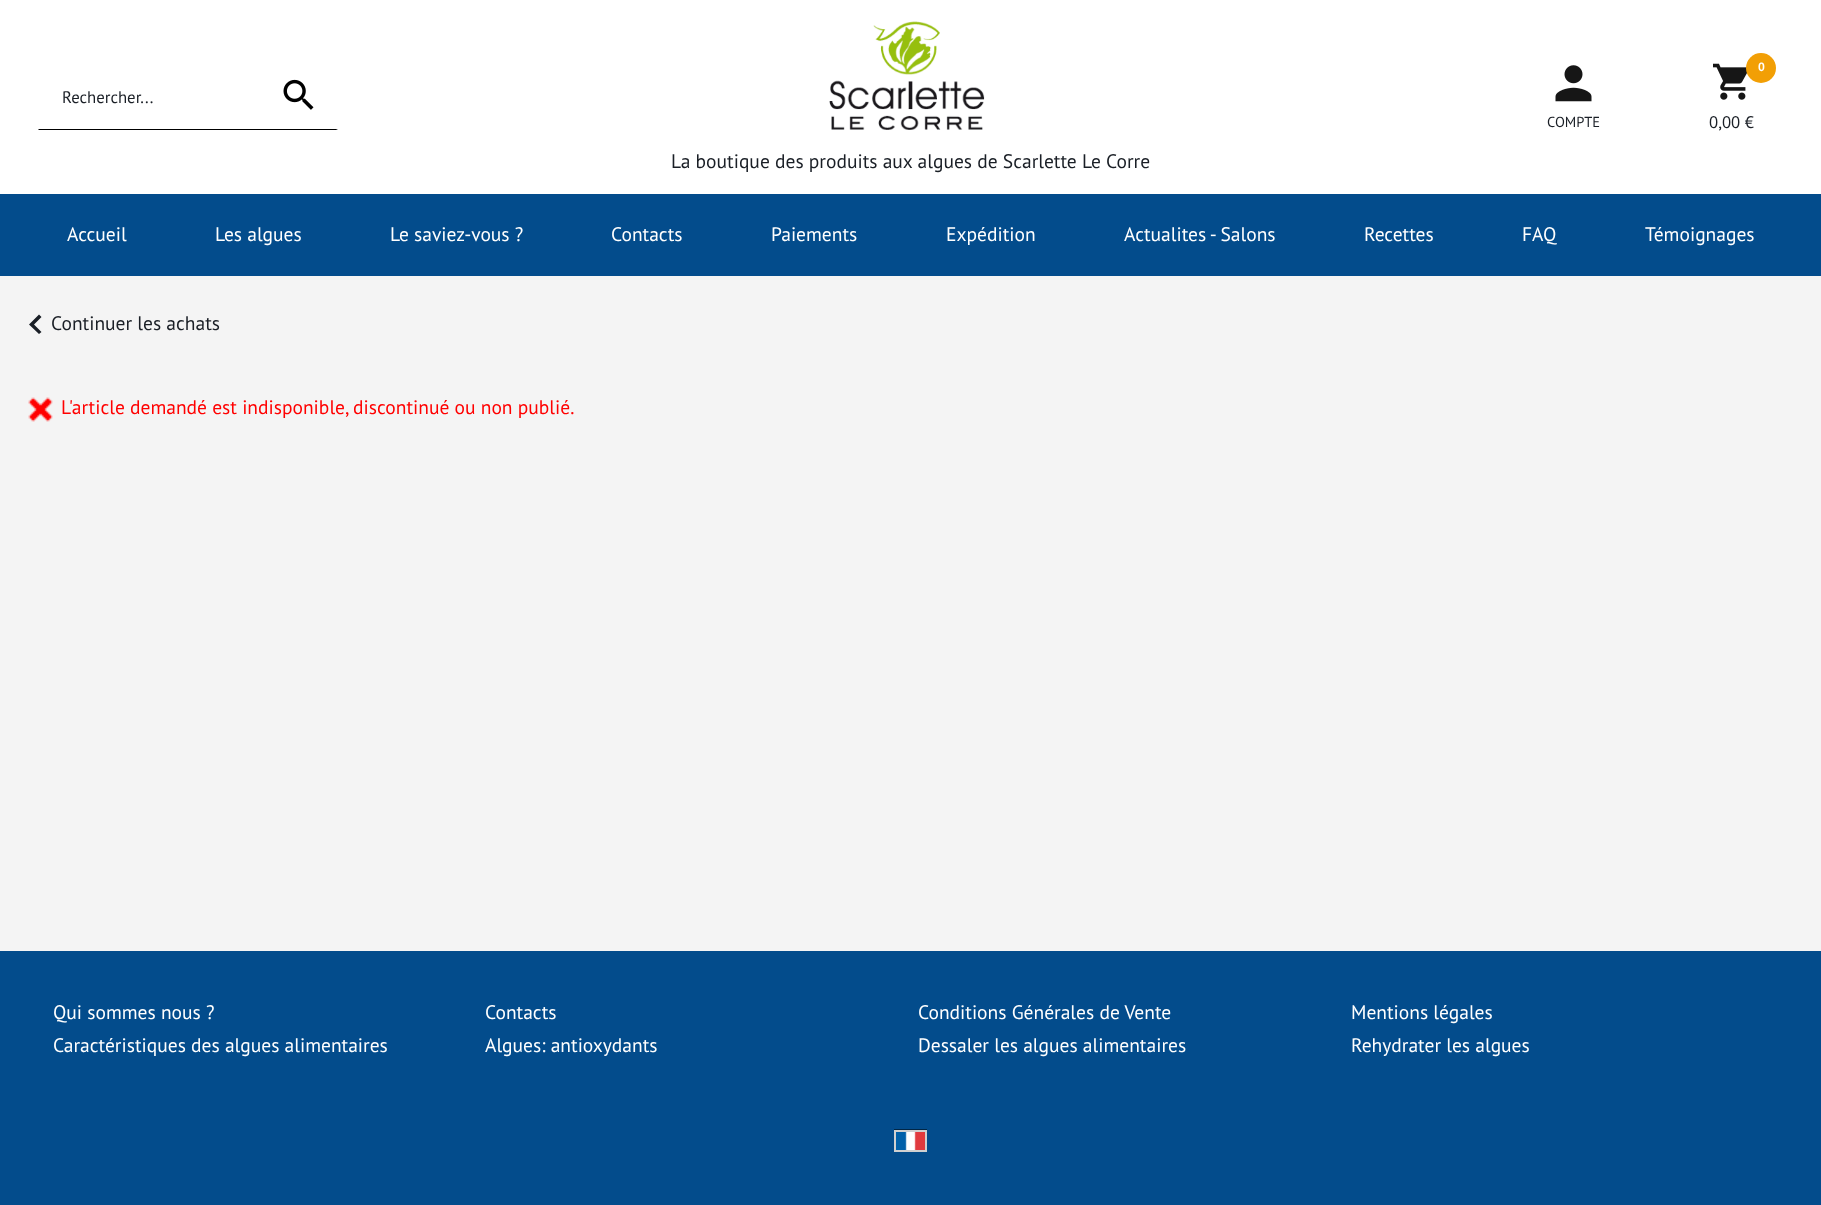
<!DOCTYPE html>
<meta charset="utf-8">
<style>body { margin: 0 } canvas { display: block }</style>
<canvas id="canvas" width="1821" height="1205"></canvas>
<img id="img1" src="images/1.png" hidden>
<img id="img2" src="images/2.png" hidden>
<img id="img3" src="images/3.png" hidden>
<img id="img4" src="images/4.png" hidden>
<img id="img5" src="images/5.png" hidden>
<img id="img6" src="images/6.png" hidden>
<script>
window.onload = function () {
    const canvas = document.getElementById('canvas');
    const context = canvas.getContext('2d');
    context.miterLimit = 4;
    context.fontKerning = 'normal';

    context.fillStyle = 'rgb(244, 244, 244)';
    context.fillRect(0, 0, 1821, 1205);
    context.fillStyle = 'rgb(255, 255, 255)';
    context.fillRect(0, 0, 1821, 194);
    context.fillStyle = 'rgb(0, 0, 0)';
    context.beginPath();
    context.moveTo(261, 130);
    context.lineTo(38, 130);
    context.lineTo(39, 129);
    context.lineTo(261, 129);
    context.closePath();
    context.fill();
    context.beginPath();
    context.moveTo(338, 130);
    context.lineTo(261, 130);
    context.lineTo(261, 129);
    context.lineTo(336, 129);
    context.closePath();
    context.fill();
    context.drawImage(document.getElementById('img1'), 283, 79, 31, 31);
    context.drawImage(document.getElementById('img2'), 1555, 65, 37, 37);
    context.drawImage(document.getElementById('img3'), 1713, 63, 34, 37);
    context.fillStyle = 'rgb(242, 159, 5)';
    context.beginPath();
    context.arc(1761, 68, 15, 0, 2 * Math.PI);
    context.fill();
    context.drawImage(document.getElementById('img4'), 829, 21, 156, 109);
    context.fillStyle = 'rgb(3, 76, 140)';
    context.fillRect(0, 194, 1821, 82);
    context.fillStyle = 'rgb(26, 31, 38)';
    context.beginPath();
    context.moveTo(41.5, 332);
    context.lineTo(34, 324.5);
    context.lineTo(41.5, 317);
    context.lineTo(39, 314.5);
    context.lineTo(29, 324.5);
    context.lineTo(39, 334);
    context.closePath();
    context.fill();
    context.drawImage(document.getElementById('img5'), 28, 397, 25, 25);
    context.fillStyle = 'rgb(3, 76, 140)';
    context.fillRect(0, 951, 1821, 254);
    context.drawImage(document.getElementById('img6'), 894, 1129, 33, 21);
    context.strokeStyle = 'rgb(208, 208, 208)';
    context.lineWidth = 2;
    context.strokeRect(895, 1131, 31, 20);
    context.font = '16.75px PT Sans';
    context.fillStyle = 'rgb(26, 31, 38)';
    context.fillText('Rechercher...', 62, 103);
    context.font = '14.5px PT Sans';
    context.fillText('COMPTE', 1547, 127);
    context.font = 'bold 12px PT Sans';
    context.fillStyle = 'rgb(255, 255, 255)';
    context.fillText('0', 1758, 71);
    context.font = '16.75px PT Sans';
    context.fillStyle = 'rgb(26, 31, 38)';
    context.fillText('0,00 €', 1709, 128);
    context.font = '19.5px PT Sans';
    context.fillText('La boutique des produits aux algues de Scarlette Le Corre', 671, 168);
    context.fillStyle = 'rgb(255, 255, 255)';
    context.fillText('Accueil', 67, 241);
    context.fillText('Les algues', 215, 241);
    context.fillText('Le saviez-vous ?', 390, 241);
    context.fillText('Contacts', 611, 241);
    context.fillText('Paiements', 771, 241);
    context.fillText('Expédition', 946, 241);
    context.fillText('Actualites - Salons', 1124, 241);
    context.fillText('Recettes', 1364, 241);
    context.fillText('FAQ', 1522, 241);
    context.fillText('Témoignages', 1645, 241);
    context.fillStyle = 'rgb(26, 31, 38)';
    context.fillText('Continuer les achats', 51, 330);
    context.fillStyle = 'rgb(255, 0, 0)';
    context.fillText('L\'article demandé est indisponible, discontinué ou non publié.', 61, 414);
    context.fillStyle = 'rgb(255, 255, 255)';
    context.fillText('Qui sommes nous ?', 53, 1019);
    context.fillText('Contacts', 485, 1019);
    context.fillText('Conditions Générales de Vente', 918, 1019);
    context.fillText('Mentions légales', 1351, 1019);
    context.fillText('Caractéristiques des algues alimentaires', 53, 1052);
    context.fillText('Algues: antioxydants', 485, 1052);
    context.fillText('Dessaler les algues alimentaires', 918, 1052);
    context.fillText('Rehydrater les algues', 1351, 1052);
};
</script>
